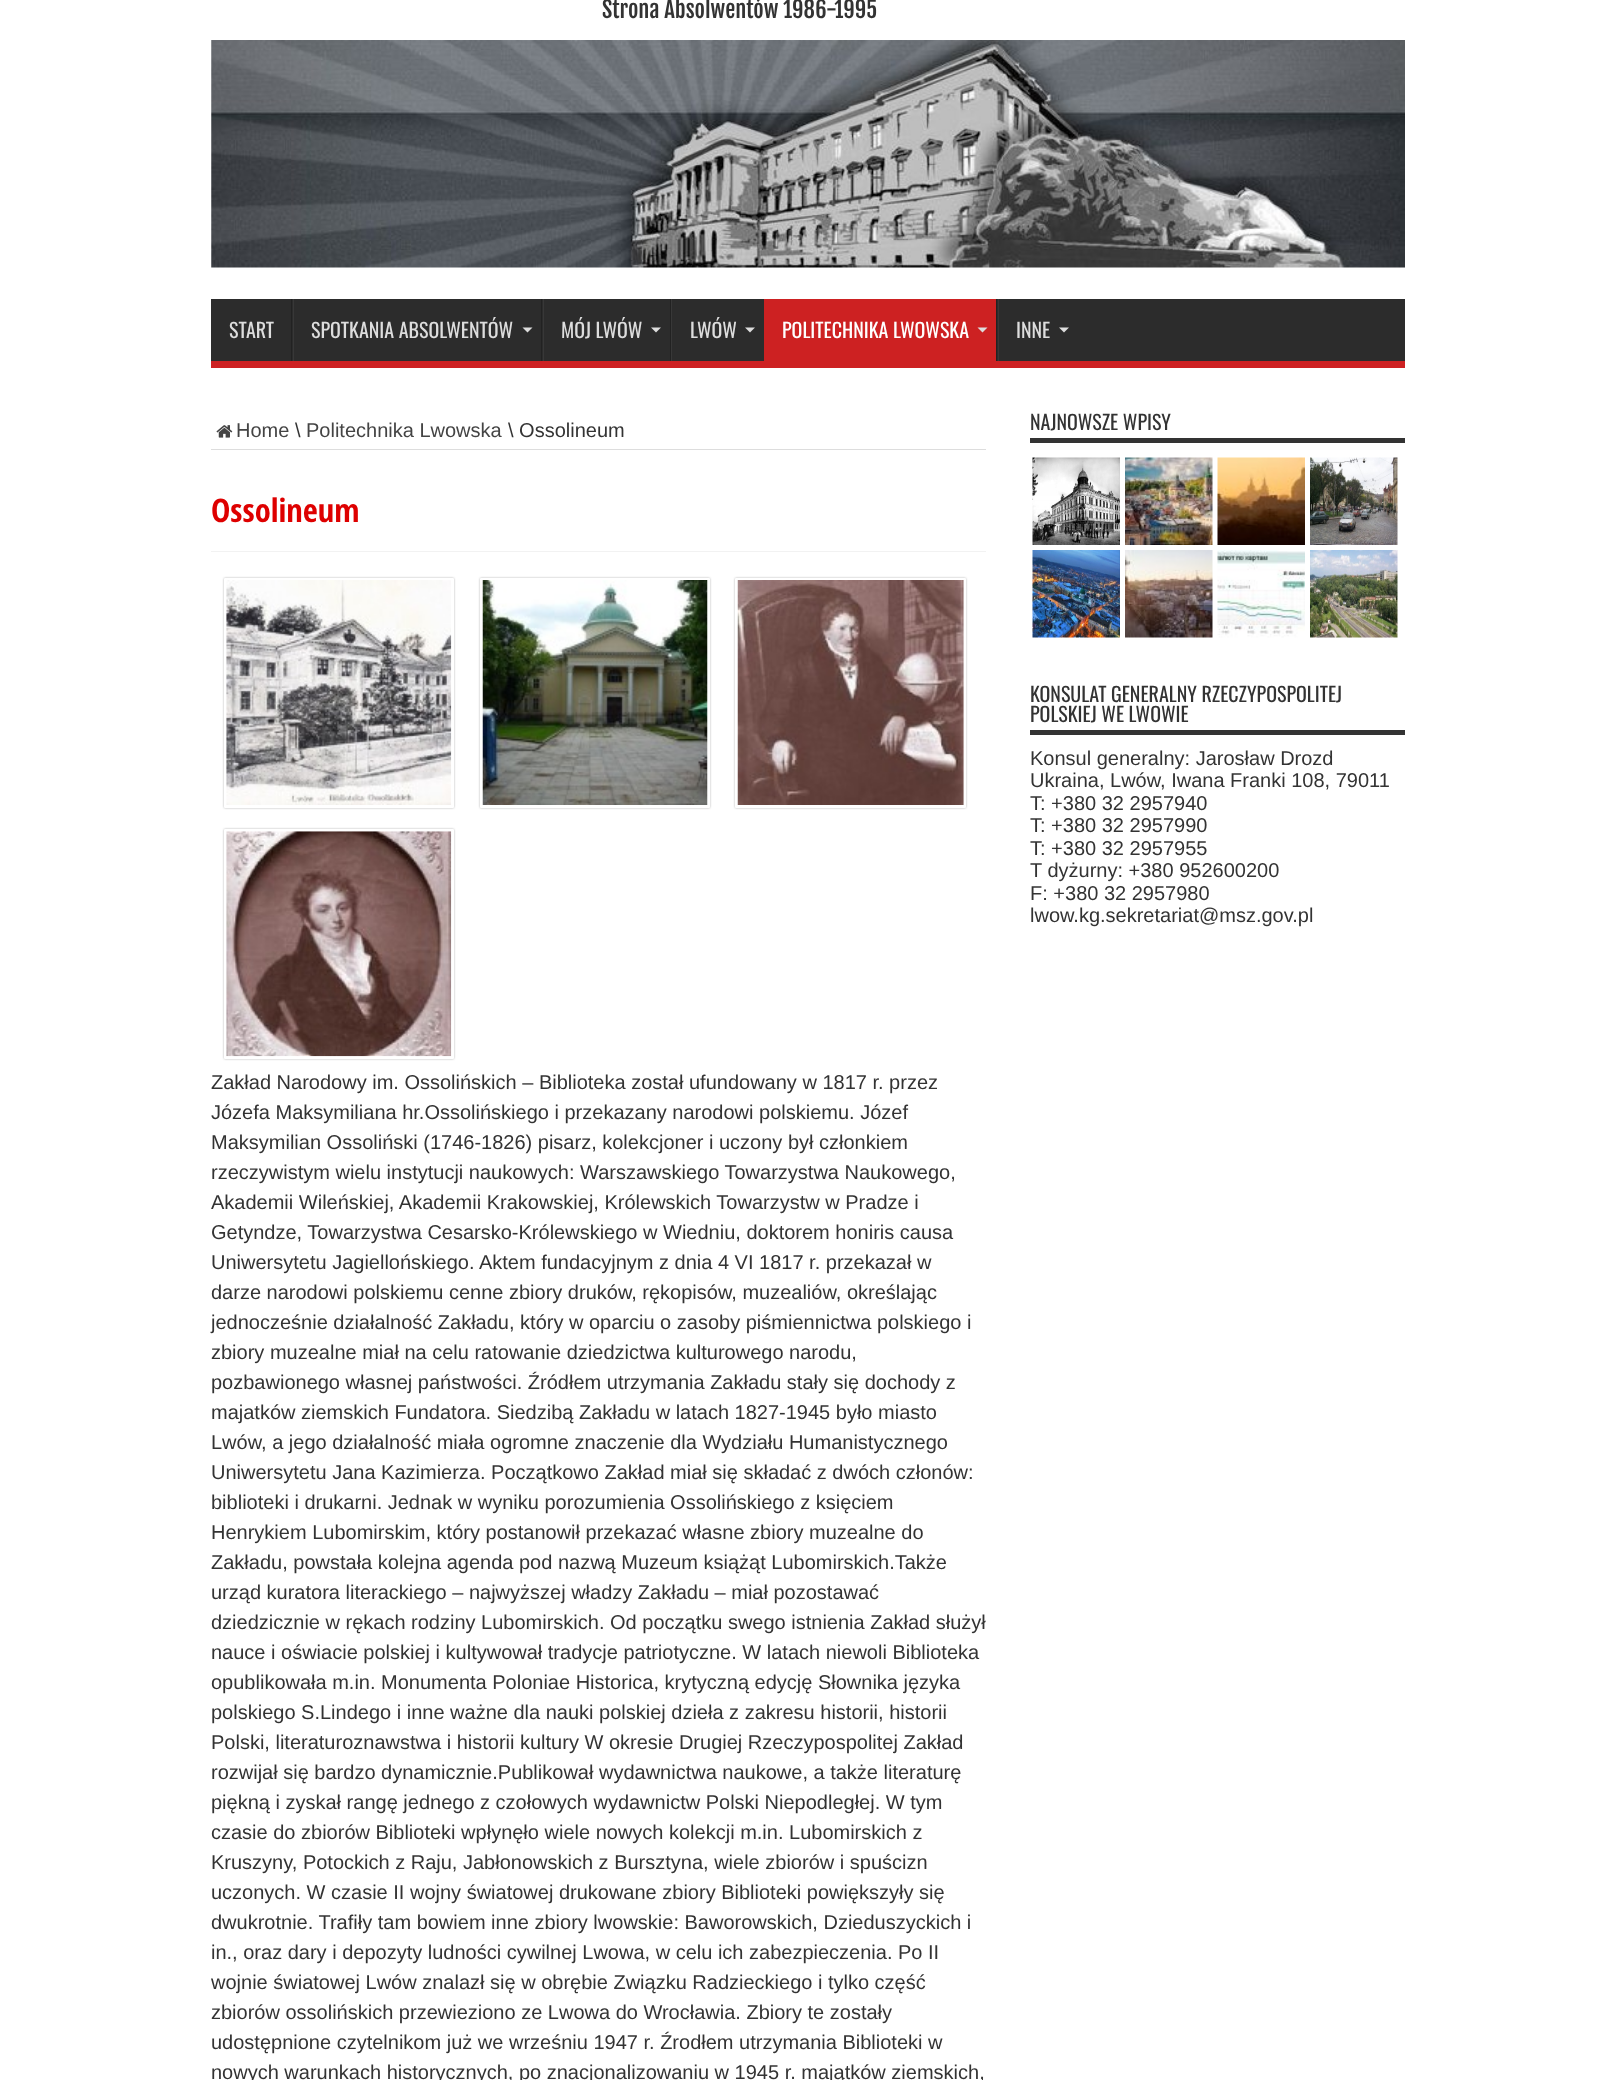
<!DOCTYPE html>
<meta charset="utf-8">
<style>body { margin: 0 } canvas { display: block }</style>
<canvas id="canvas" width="1616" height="2080"></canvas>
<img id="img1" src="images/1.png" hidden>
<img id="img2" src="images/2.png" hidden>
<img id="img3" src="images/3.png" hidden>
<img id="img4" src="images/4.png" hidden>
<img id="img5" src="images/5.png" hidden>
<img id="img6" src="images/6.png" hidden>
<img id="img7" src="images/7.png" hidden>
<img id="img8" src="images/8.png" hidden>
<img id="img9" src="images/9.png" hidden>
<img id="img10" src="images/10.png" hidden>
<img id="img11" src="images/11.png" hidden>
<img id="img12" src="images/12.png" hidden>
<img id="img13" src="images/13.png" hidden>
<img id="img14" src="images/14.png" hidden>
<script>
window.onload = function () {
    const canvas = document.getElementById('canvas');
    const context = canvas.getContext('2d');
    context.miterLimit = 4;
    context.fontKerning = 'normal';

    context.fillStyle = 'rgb(255, 255, 255)';
    context.fillRect(0, 0, 1616, 2080);
    context.drawImage(document.getElementById('img1'), 211, 40, 1194, 228);
    context.fillStyle = 'rgb(44, 44, 44)';
    context.fillRect(211, 299, 1194, 62);
    context.fillStyle = 'rgb(205, 33, 34)';
    context.fillRect(211, 361, 1194, 7);
    context.fillStyle = 'rgb(34, 34, 34)';
    context.fillRect(291, 299, 1, 62);
    context.fillStyle = 'rgb(56, 56, 56)';
    context.fillRect(293, 299, 1, 62);
    context.fillStyle = 'rgb(221, 221, 221)';
    context.beginPath();
    context.moveTo(522.5, 327.5);
    context.lineTo(532.5, 327.5);
    context.lineTo(527.5, 332.5);
    context.closePath();
    context.fill();
    context.fillStyle = 'rgb(34, 34, 34)';
    context.fillRect(541, 299, 1, 62);
    context.fillStyle = 'rgb(56, 56, 56)';
    context.fillRect(543, 299, 1, 62);
    context.fillStyle = 'rgb(221, 221, 221)';
    context.beginPath();
    context.moveTo(651, 327.5);
    context.lineTo(661, 327.5);
    context.lineTo(656, 332.5);
    context.closePath();
    context.fill();
    context.fillStyle = 'rgb(34, 34, 34)';
    context.fillRect(670, 299, 1, 62);
    context.fillStyle = 'rgb(56, 56, 56)';
    context.fillRect(671, 299, 1, 62);
    context.fillStyle = 'rgb(221, 221, 221)';
    context.beginPath();
    context.moveTo(745, 327.5);
    context.lineTo(755, 327.5);
    context.lineTo(750, 332.5);
    context.closePath();
    context.fill();
    context.fillStyle = 'rgb(205, 33, 34)';
    context.fillRect(764, 299, 232, 62);
    context.fillStyle = 'rgb(221, 221, 221)';
    context.beginPath();
    context.moveTo(977.5, 327.5);
    context.lineTo(987.5, 327.5);
    context.lineTo(982.5, 332.5);
    context.closePath();
    context.fill();
    context.fillStyle = 'rgb(34, 34, 34)';
    context.fillRect(996, 299, 1, 62);
    context.fillStyle = 'rgb(56, 56, 56)';
    context.fillRect(998, 299, 1, 62);
    context.fillStyle = 'rgb(221, 221, 221)';
    context.beginPath();
    context.moveTo(1059, 327.5);
    context.lineTo(1069, 327.5);
    context.lineTo(1064, 332.5);
    context.closePath();
    context.fill();
    context.fillRect(211, 449, 775, 1);
    context.drawImage(document.getElementById('img2'), 216, 425, 17, 13);
    context.fillStyle = 'rgb(242, 242, 242)';
    context.fillRect(211, 551, 775, 1);
    context.fillStyle = 'rgb(181, 181, 181)';
    context.filter = 'blur(1px)';
    context.beginPath();
    context.roundRect(224, 578, 230, 230, 1);
    context.fill();
    context.filter = 'none';
    context.fillStyle = 'rgb(255, 255, 255)';
    context.beginPath();
    context.roundRect(224, 578, 230, 230, 1);
    context.fill();
    context.drawImage(document.getElementById('img3'), 226, 580, 226, 225);
    context.fillStyle = 'rgb(181, 181, 181)';
    context.filter = 'blur(1px)';
    context.beginPath();
    context.roundRect(480, 578, 230, 230, 1);
    context.fill();
    context.filter = 'none';
    context.fillStyle = 'rgb(255, 255, 255)';
    context.beginPath();
    context.roundRect(480, 578, 230, 230, 1);
    context.fill();
    context.drawImage(document.getElementById('img4'), 482, 580, 226, 225);
    context.fillStyle = 'rgb(181, 181, 181)';
    context.filter = 'blur(1px)';
    context.beginPath();
    context.roundRect(735, 578, 231, 230, 1);
    context.fill();
    context.filter = 'none';
    context.fillStyle = 'rgb(255, 255, 255)';
    context.beginPath();
    context.roundRect(735, 578, 231, 230, 1);
    context.fill();
    context.drawImage(document.getElementById('img5'), 737, 580, 227, 225);
    context.fillStyle = 'rgb(181, 181, 181)';
    context.filter = 'blur(1px)';
    context.beginPath();
    context.roundRect(224, 829, 230, 230, 1);
    context.fill();
    context.filter = 'none';
    context.fillStyle = 'rgb(255, 255, 255)';
    context.beginPath();
    context.roundRect(224, 829, 230, 230, 1);
    context.fill();
    context.drawImage(document.getElementById('img6'), 226, 831, 226, 226);
    context.fillStyle = 'rgb(51, 51, 51)';
    context.fillRect(1030, 438, 375, 5);
    context.drawImage(document.getElementById('img7'), 1032, 457, 88, 88);
    context.drawImage(document.getElementById('img8'), 1125, 457, 88, 88);
    context.drawImage(document.getElementById('img9'), 1217, 457, 88, 88);
    context.drawImage(document.getElementById('img10'), 1310, 457, 88, 88);
    context.drawImage(document.getElementById('img11'), 1032, 550, 88, 88);
    context.drawImage(document.getElementById('img12'), 1125, 550, 88, 88);
    context.drawImage(document.getElementById('img13'), 1217, 550, 88, 88);
    context.drawImage(document.getElementById('img14'), 1310, 550, 88, 88);
    context.fillRect(1030, 730, 375, 5);
    context.font = '22.5px Fjalla One';
    context.fillText('Strona Absolwentów 1986-1995', 602, 18);
    context.font = '20px Oswald';
    context.fillStyle = 'rgb(221, 221, 221)';
    context.fillText('START', 229, 338);
    context.fillText('SPOTKANIA ABSOLWENTÓW', 311, 338);
    context.fillText('MÓJ LWÓW', 561, 338);
    context.fillText('LWÓW', 690, 338);
    context.fillStyle = 'rgb(255, 255, 255)';
    context.fillText('POLITECHNIKA LWOWSKA', 782, 338);
    context.fillStyle = 'rgb(221, 221, 221)';
    context.fillText('INNE', 1016, 338);
    context.font = '20px Liberation Sans';
    context.fillStyle = 'rgb(68, 68, 68)';
    context.fillText('Home', 236, 437);
    context.fillStyle = 'rgb(51, 51, 51)';
    context.fillText('\\', 295, 437);
    context.fillStyle = 'rgb(68, 68, 68)';
    context.fillText('Politechnika Lwowska', 306, 437);
    context.fillStyle = 'rgb(51, 51, 51)';
    context.fillText('\\ Ossolineum', 508, 437);
    context.font = 'bold 32.5px Open Sans Condensed';
    context.fillStyle = 'rgb(222, 0, 0)';
    context.fillText('Ossolineum', 211, 522);
    context.font = '20px Liberation Sans';
    context.fillStyle = 'rgb(51, 51, 51)';
    context.fillText('Zakład Narodowy im. Ossolińskich – Biblioteka został ufundowany w 1817 r. przez', 211, 1089);
    context.fillText('Józefa Maksymiliana hr.Ossolińskiego i przekazany narodowi polskiemu. Józef', 211, 1119);
    context.fillText('Maksymilian Ossoliński (1746-1826) pisarz, kolekcjoner i uczony był członkiem', 211, 1149);
    context.fillText('rzeczywistym wielu instytucji naukowych: Warszawskiego Towarzystwa Naukowego,', 211, 1179);
    context.fillText('Akademii Wileńskiej, Akademii Krakowskiej, Królewskich Towarzystw w Pradze i', 211, 1209);
    context.fillText('Getyndze, Towarzystwa Cesarsko-Królewskiego w Wiedniu, doktorem honiris causa', 211, 1239);
    context.fillText('Uniwersytetu Jagiellońskiego. Aktem fundacyjnym z dnia 4 VI 1817 r. przekazał w', 211, 1269);
    context.fillText('darze narodowi polskiemu cenne zbiory druków, rękopisów, muzealiów, określając', 211, 1299);
    context.fillText('jednocześnie działalność Zakładu, który w oparciu o zasoby piśmiennictwa polskiego i', 211, 1329);
    context.fillText('zbiory muzealne miał na celu ratowanie dziedzictwa kulturowego narodu,', 211, 1359);
    context.fillText('pozbawionego własnej państwości. Źródłem utrzymania Zakładu stały się dochody z', 211, 1389);
    context.fillText('majatków ziemskich Fundatora. Siedzibą Zakładu w latach 1827-1945 było miasto', 211, 1419);
    context.fillText('Lwów, a jego działalność miała ogromne znaczenie dla Wydziału Humanistycznego', 211, 1449);
    context.fillText('Uniwersytetu Jana Kazimierza. Początkowo Zakład miał się składać z dwóch członów:', 211, 1479);
    context.fillText('biblioteki i drukarni. Jednak w wyniku porozumienia Ossolińskiego z księciem', 211, 1509);
    context.fillText('Henrykiem Lubomirskim, który postanowił przekazać własne zbiory muzealne do', 211, 1539);
    context.fillText('Zakładu, powstała kolejna agenda pod nazwą Muzeum książąt Lubomirskich.Także', 211, 1569);
    context.fillText('urząd kuratora literackiego – najwyższej władzy Zakładu – miał pozostawać', 211, 1599);
    context.fillText('dziedzicznie w rękach rodziny Lubomirskich. Od początku swego istnienia Zakład służył', 211, 1629);
    context.fillText('nauce i oświacie polskiej i kultywował tradycje patriotyczne. W latach niewoli Biblioteka', 211, 1659);
    context.fillText('opublikowała m.in. Monumenta Poloniae Historica, krytyczną edycję Słownika języka', 211, 1689);
    context.fillText('polskiego S.Lindego i inne ważne dla nauki polskiej dzieła z zakresu historii, historii', 211, 1719);
    context.fillText('Polski, literaturoznawstwa i historii kultury W okresie Drugiej Rzeczypospolitej Zakład', 211, 1749);
    context.fillText('rozwijał się bardzo dynamicznie.Publikował wydawnictwa naukowe, a także literaturę', 211, 1779);
    context.fillText('piękną i zyskał rangę jednego z czołowych wydawnictw Polski Niepodległej. W tym', 211, 1809);
    context.fillText('czasie do zbiorów Biblioteki wpłynęło wiele nowych kolekcji m.in. Lubomirskich z', 211, 1839);
    context.fillText('Kruszyny, Potockich z Raju, Jabłonowskich z Bursztyna, wiele zbiorów i spuścizn', 211, 1869);
    context.fillText('uczonych. W czasie II wojny światowej drukowane zbiory Biblioteki powiększyły się', 211, 1899);
    context.fillText('dwukrotnie. Trafiły tam bowiem inne zbiory lwowskie: Baworowskich, Dzieduszyckich i', 211, 1929);
    context.fillText('in., oraz dary i depozyty ludności cywilnej Lwowa, w celu ich zabezpieczenia. Po II', 211, 1959);
    context.fillText('wojnie światowej Lwów znalazł się w obrębie Związku Radzieckiego i tylko część', 211, 1989);
    context.fillText('zbiorów ossolińskich przewieziono ze Lwowa do Wrocławia. Zbiory te zostały', 211, 2019);
    context.fillText('udostępnione czytelnikom już we wrześniu 1947 r. Źrodłem utrzymania Biblioteki w', 211, 2049);
    context.fillText('nowych warunkach historycznych, po znacjonalizowaniu w 1945 r. majątków ziemskich,', 211, 2079);
    context.font = '20px Oswald';
    context.fillText('NAJNOWSZE WPISY', 1030, 430);
    context.fillText('KONSULAT GENERALNY RZECZYPOSPOLITEJ', 1030, 702);
    context.fillText('POLSKIEJ WE LWOWIE', 1030, 722);
    context.font = '20px Liberation Sans';
    context.fillText('Konsul generalny: Jarosław Drozd', 1030, 765);
    context.fillText('Ukraina, Lwów, Iwana Franki 108, 79011', 1030, 787);
    context.fillText('T: +380 32 2957940', 1030, 810);
    context.fillText('T: +380 32 2957990', 1030, 832);
    context.fillText('T: +380 32 2957955', 1030, 855);
    context.fillText('T dyżurny: +380 952600200', 1030, 877);
    context.fillText('F: +380 32 2957980', 1030, 900);
    context.fillText('lwow.kg.sekretariat@msz.gov.pl', 1030, 922);
};
</script>
